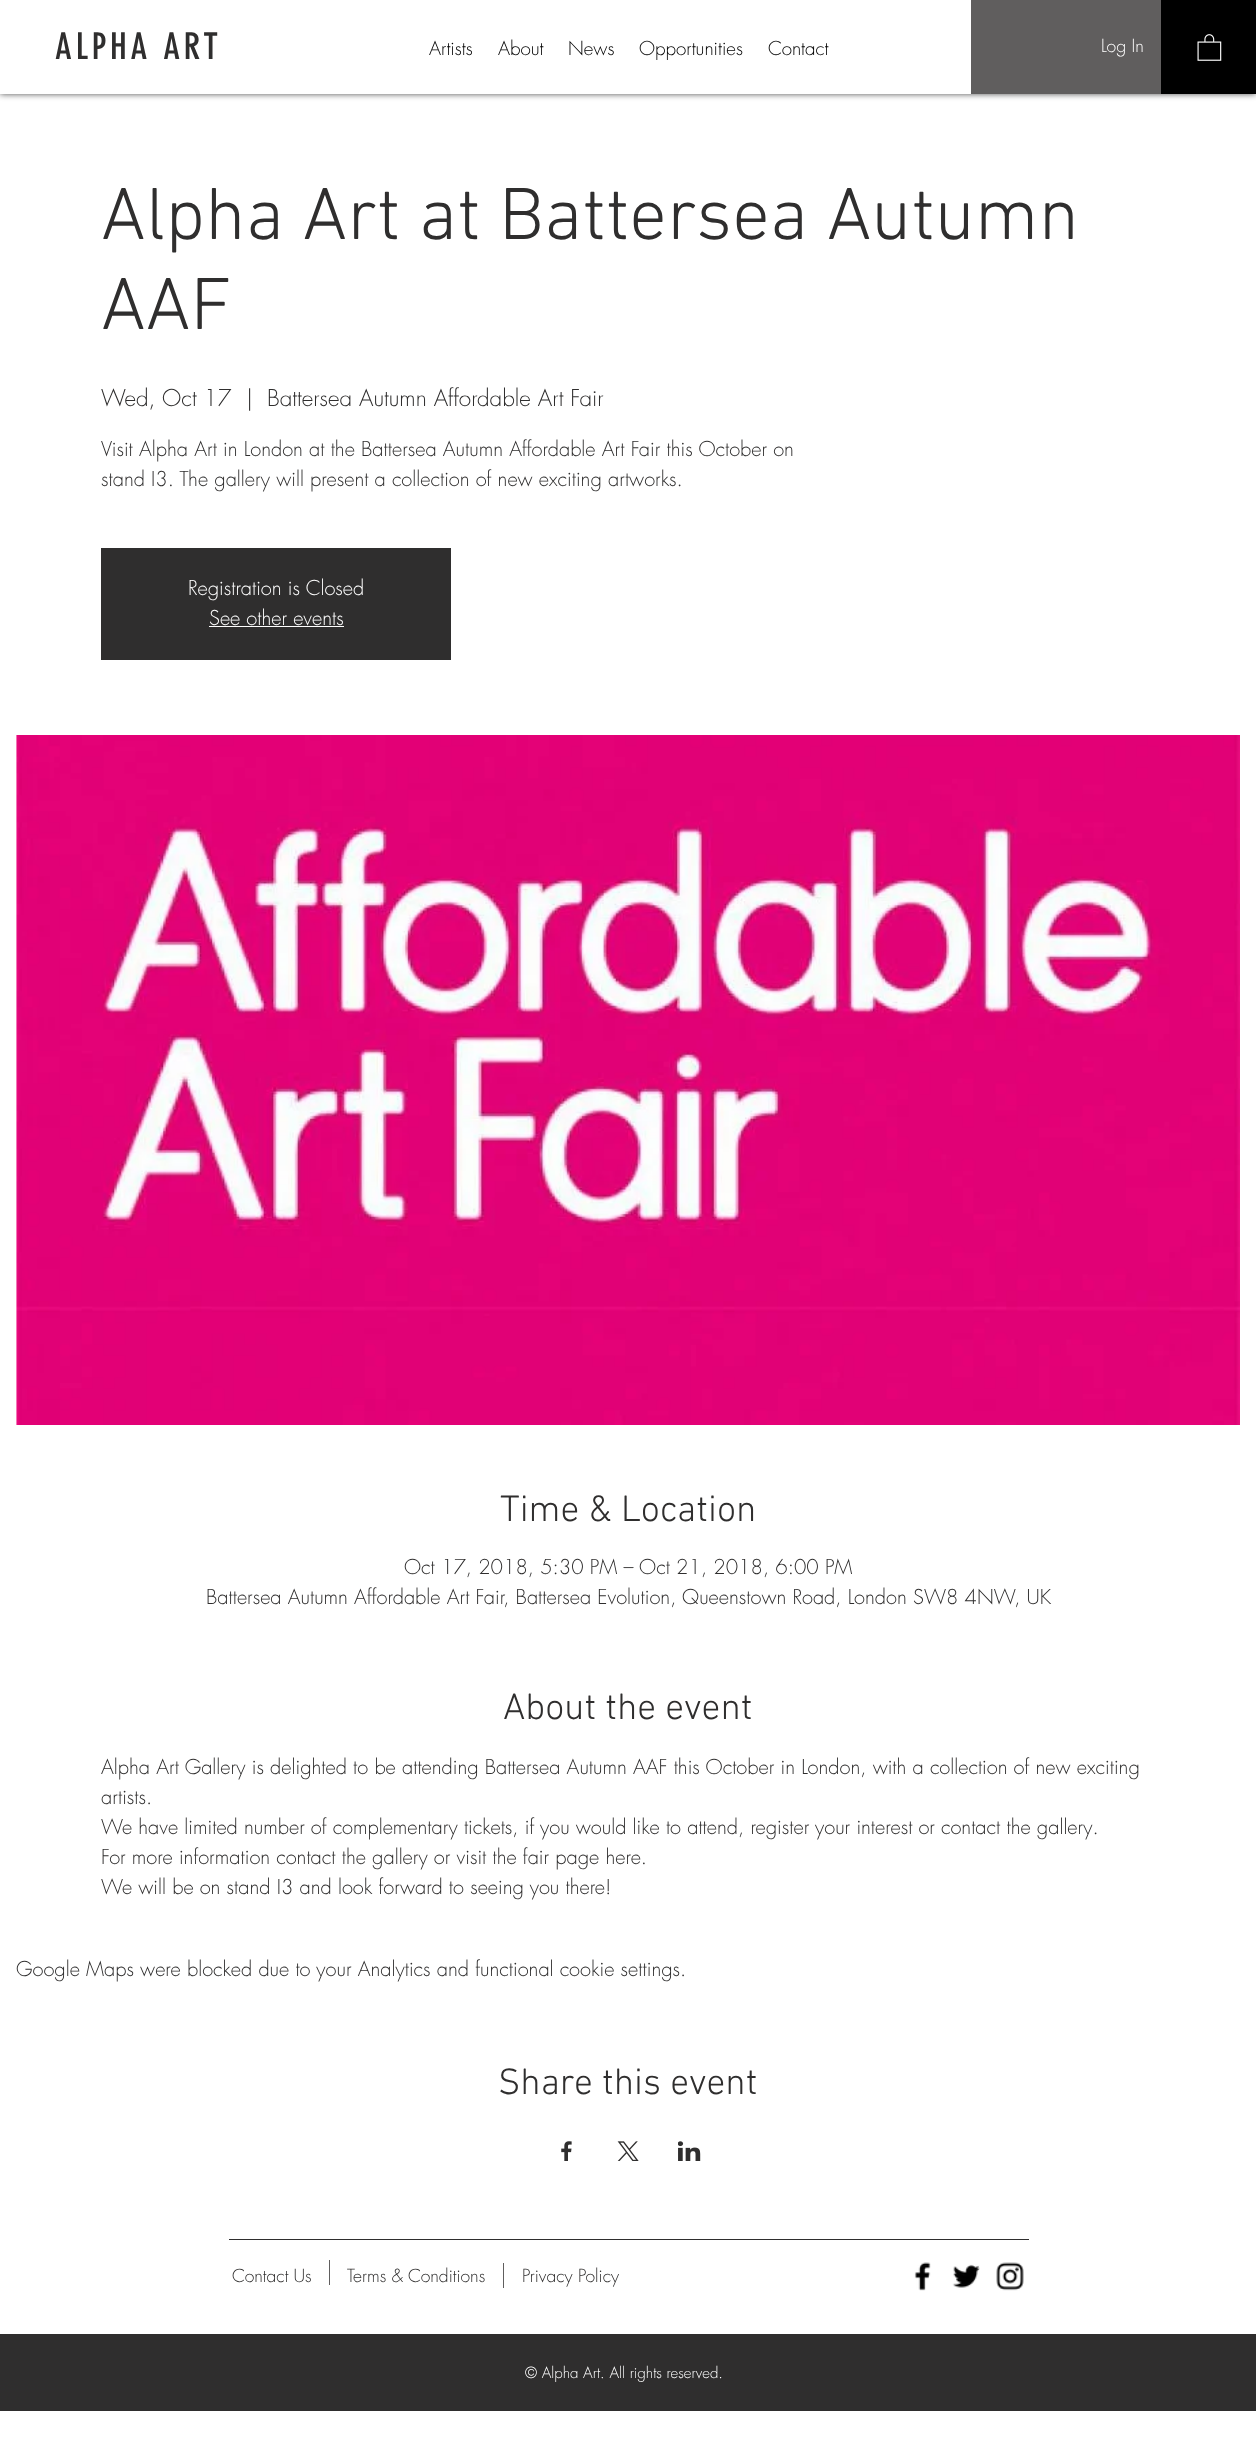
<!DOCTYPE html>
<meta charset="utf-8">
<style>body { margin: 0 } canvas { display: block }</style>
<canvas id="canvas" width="1256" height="2450"></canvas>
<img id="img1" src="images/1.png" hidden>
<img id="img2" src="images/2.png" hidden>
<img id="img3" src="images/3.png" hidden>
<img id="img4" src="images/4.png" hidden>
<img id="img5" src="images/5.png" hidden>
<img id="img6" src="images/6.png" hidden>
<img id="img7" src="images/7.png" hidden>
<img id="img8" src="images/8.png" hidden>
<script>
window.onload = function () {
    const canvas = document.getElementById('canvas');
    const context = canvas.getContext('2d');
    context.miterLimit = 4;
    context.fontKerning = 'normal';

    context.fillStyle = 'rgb(255, 255, 255)';
    context.fillRect(0, 0, 1256, 2450);
    context.fillStyle = 'rgba(0, 0, 0, 0.7)';
    context.filter = 'blur(3px)';
    context.beginPath();
    context.rect(0, 0, 1256, 94);
    context.fill();
    context.filter = 'none';
    context.fillStyle = 'rgb(255, 255, 255)';
    context.fillRect(0, 0, 971, 94);
    context.fillStyle = 'rgb(96, 94, 94)';
    context.fillRect(971, 0, 190, 94);
    context.fillStyle = 'rgb(0, 0, 0)';
    context.fillRect(1161, 0, 95, 94);
    context.drawImage(document.getElementById('img1'), 1197, 34, 25, 27);
    context.fillStyle = 'rgb(47, 46, 46)';
    context.fillRect(101, 548, 350, 112);
    context.fillStyle = 'rgb(255, 255, 255)';
    context.fillRect(209, 626, 135, 1);
    context.drawImage(document.getElementById('img2'), 16, 735, 1224, 690);
    context.drawImage(document.getElementById('img3'), 561, 2141, 11, 20);
    context.drawImage(document.getElementById('img4'), 617, 2141, 22, 20);
    context.drawImage(document.getElementById('img5'), 678, 2141, 23, 20);
    context.fillStyle = 'rgb(47, 46, 46)';
    context.fillRect(229, 2239, 800, 1);
    context.fillStyle = 'rgb(96, 94, 94)';
    context.fillRect(329, 2260, 1, 25);
    context.fillRect(503, 2263, 1, 25);
    context.drawImage(document.getElementById('img6'), 914, 2262, 17, 29);
    context.drawImage(document.getElementById('img7'), 952, 2264, 28, 24);
    context.drawImage(document.getElementById('img8'), 996, 2262, 28, 29);
    context.fillStyle = 'rgb(47, 46, 46)';
    context.fillRect(0, 2334, 1256, 77);
    context.letterSpacing = '3.6px';
    context.font = '36.25px "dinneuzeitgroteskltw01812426"';
    context.fillText('ALPHA ART', 55, 59);
    context.letterSpacing = '0px';
    context.font = '300 18.75px futura';
    context.fillStyle = 'rgb(0, 0, 0)';
    context.fillText('Artists', 429, 55);
    context.fillText('About', 498, 55);
    context.fillText('News', 568, 55);
    context.fillText('Opportunities', 639, 55);
    context.fillText('Contact', 768, 55);
    context.font = '300 17.5px futura';
    context.fillStyle = 'rgb(255, 255, 255)';
    context.fillText('Log In', 1101, 52);
    context.font = '300 75px "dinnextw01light"';
    context.fillStyle = 'rgb(47, 46, 46)';
    context.fillText('Alpha Art at Battersea Autumn', 101, 239);
    context.fillText('AAF', 101, 329);
    context.font = '300 22.5px futura';
    context.fillText('Wed, Oct 17', 101, 406);
    context.fillText('|', 246, 406);
    context.fillText('Battersea Autumn Affordable Art Fair', 267, 406);
    context.font = '300 20px futura';
    context.fillText('Visit Alpha Art in London at the Battersea Autumn Affordable Art Fair this October on', 101, 456);
    context.fillText('stand I3. The gallery will present a collection of new exciting artworks.', 101, 486);
    context.fillStyle = 'rgb(255, 255, 255)';
    context.fillText('Registration is Closed', 188, 595);
    context.fillText('See other events', 209, 625);
    context.font = '300 37.5px "dinnextw01light"';
    context.fillStyle = 'rgb(47, 46, 46)';
    context.fillText('Time & Location', 500, 1521);
    context.font = '300 20px futura';
    context.fillText('Oct 17, 2018, 5:30 PM – Oct 21, 2018, 6:00 PM', 404, 1574);
    context.fillText('Battersea Autumn Affordable Art Fair, Battersea Evolution, Queenstown Road, London SW8 4NW, UK', 206, 1604);
    context.font = '300 37.5px "dinnextw01light"';
    context.fillText('About the event', 503, 1719);
    context.font = '300 20px futura';
    context.fillText('Alpha Art Gallery is delighted to be attending Battersea Autumn AAF this October in London, with a collection of new exciting', 101, 1774);
    context.fillText('artists.', 101, 1804);
    context.fillText('We have limited number of complementary tickets, if you would like to attend, register your interest or contact the gallery.', 101, 1834);
    context.fillText('For more information contact the gallery or visit the fair page here.', 101, 1864);
    context.fillText('We will be on stand I3 and look forward to seeing you there!', 101, 1894);
    context.fillText('Google Maps were blocked due to your Analytics and functional cookie settings.', 16, 1976);
    context.font = '300 37.5px "dinnextw01light"';
    context.fillText('Share this event', 498, 2094);
    context.font = '300 17.5px futura';
    context.fillText('Contact Us', 232, 2282);
    context.fillText('Terms & Conditions', 347, 2282);
    context.fillText('Privacy Policy', 522, 2282);
    context.font = '300 15px futura';
    context.fillStyle = 'rgb(255, 255, 255)';
    context.fillText('© Alpha Art. All rights reserved.', 525, 2378);
};
</script>
